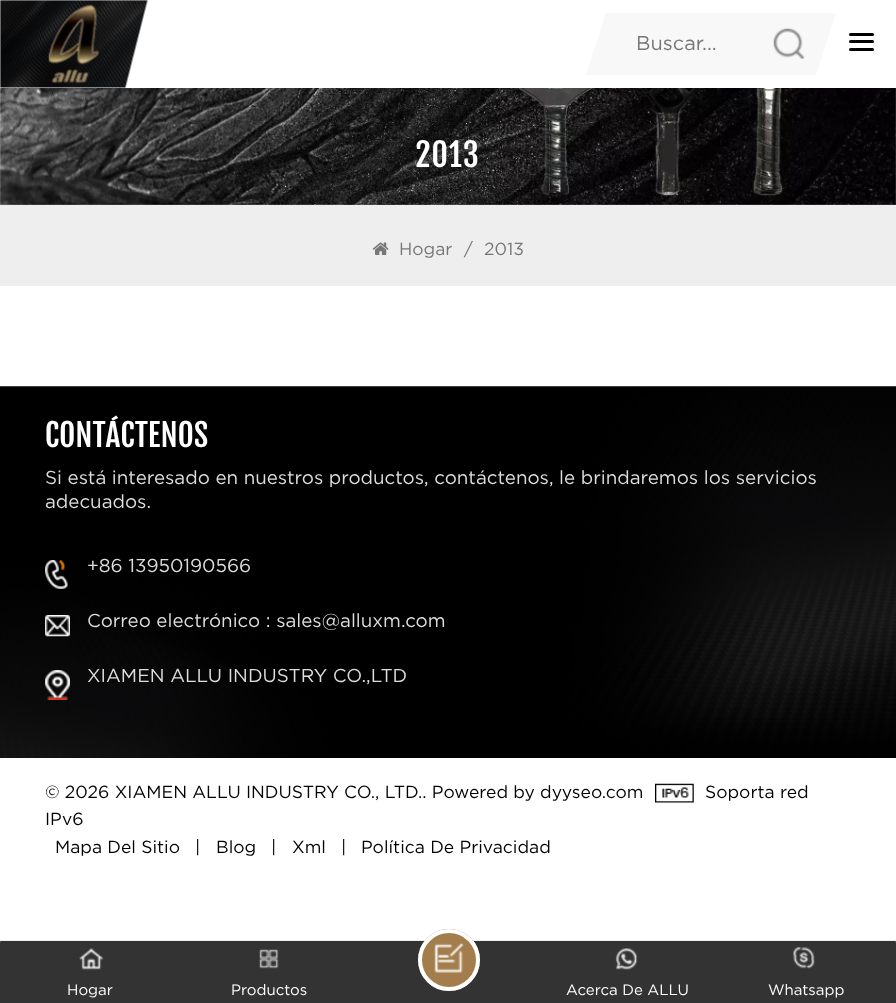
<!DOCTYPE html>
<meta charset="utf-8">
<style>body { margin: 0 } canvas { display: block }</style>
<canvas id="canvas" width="896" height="1003"></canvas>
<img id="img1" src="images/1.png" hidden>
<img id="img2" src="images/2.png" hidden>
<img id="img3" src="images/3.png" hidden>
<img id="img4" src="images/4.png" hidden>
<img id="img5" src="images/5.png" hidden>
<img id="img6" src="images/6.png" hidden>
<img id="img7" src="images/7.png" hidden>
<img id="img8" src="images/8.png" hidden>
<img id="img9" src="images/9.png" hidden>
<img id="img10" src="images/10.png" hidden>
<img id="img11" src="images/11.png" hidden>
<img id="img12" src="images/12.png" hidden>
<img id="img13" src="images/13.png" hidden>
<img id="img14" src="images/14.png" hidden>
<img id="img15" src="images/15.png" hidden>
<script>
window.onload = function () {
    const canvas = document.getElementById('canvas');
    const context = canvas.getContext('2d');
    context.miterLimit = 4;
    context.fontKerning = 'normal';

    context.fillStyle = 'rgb(255, 255, 255)';
    context.fillRect(0, 0, 896, 1003);
    context.drawImage(document.getElementById('img1'), 0, 0, 148, 88);
    context.drawImage(document.getElementById('img2'), 48, 4, 51, 80);
    context.fillStyle = 'rgb(248, 248, 248)';
    context.beginPath();
    context.moveTo(586, 75);
    context.lineTo(816, 75);
    context.lineTo(836, 13);
    context.lineTo(606, 13);
    context.closePath();
    context.fill();
    context.drawImage(document.getElementById('img3'), 773, 28, 31, 31);
    context.fillStyle = 'rgb(0, 0, 0)';
    context.beginPath();
    context.roundRect(849, 40, 25, 3, 1.5);
    context.fill();
    context.beginPath();
    context.roundRect(849, 33, 25, 3, 1.5);
    context.fill();
    context.beginPath();
    context.roundRect(849, 48, 25, 3, 1.5);
    context.fill();
    context.drawImage(document.getElementById('img4'), 0, 88, 896, 117);
    context.fillStyle = 'rgb(238, 238, 238)';
    context.fillRect(0, 205, 896, 81);
    context.drawImage(document.getElementById('img5'), 372, 242, 17, 13);
    context.drawImage(document.getElementById('img6'), 0, 386, 896, 372);
    context.drawImage(document.getElementById('img7'), 45, 560, 23, 29);
    context.drawImage(document.getElementById('img8'), 45, 615, 25, 22);
    context.drawImage(document.getElementById('img9'), 45, 670, 25, 30);
    context.drawImage(document.getElementById('img10'), 655, 783, 39, 20);
    context.fillStyle = 'rgb(51, 51, 51)';
    context.beginPath();
    context.moveTo(2.5, 940);
    context.lineTo(893.5, 940);
    context.bezierCurveTo(895, 940, 896, 941, 896, 942.5);
    context.lineTo(896, 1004);
    context.lineTo(0, 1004);
    context.lineTo(0, 942.5);
    context.bezierCurveTo(0, 941, 1, 940, 2.5, 940);
    context.closePath();
    context.fill();
    context.fillStyle = 'rgb(238, 238, 238)';
    context.fillRect(1, 940, 894, 1);
    context.fillStyle = 'rgb(163, 126, 76)';
    context.beginPath();
    context.arc(449, 960, 31, 0, 2 * Math.PI);
    context.fill();
    context.drawImage(document.getElementById('img11'), 434, 943, 30, 30);
    context.beginPath();
    context.arc(449, 960, 29, 0, 2 * Math.PI);
    context.strokeStyle = 'rgb(255, 255, 255)';
    context.lineWidth = 4;
    context.stroke();
    context.drawImage(document.getElementById('img12'), 79, 948, 25, 22);
    context.drawImage(document.getElementById('img13'), 259, 949, 20, 20);
    context.drawImage(document.getElementById('img14'), 615, 948, 23, 22);
    context.drawImage(document.getElementById('img15'), 793, 947, 22, 22);
    context.font = '20px Gotham';
    context.fillStyle = 'rgb(119, 119, 119)';
    context.fillText('Buscar...', 636, 50);
    context.letterSpacing = '1px';
    context.font = '32px Fjalla One';
    context.fillStyle = 'rgb(255, 255, 255)';
    context.fillText('2013', 415, 167);
    context.letterSpacing = '0px';
    context.font = '17.5px Gotham';
    context.fillStyle = 'rgb(119, 119, 119)';
    context.fillText('Hogar', 399, 255);
    context.fillText('/', 464, 255);
    context.fillText('2013', 484, 255);
    context.font = '31.25px Fjalla One';
    context.fillStyle = 'rgb(255, 255, 255)';
    context.fillText('CONTÁCTENOS', 45, 447);
    context.font = '18.75px Gotham';
    context.fillStyle = 'rgb(222, 222, 222)';
    context.fillText('Si está interesado en nuestros productos, contáctenos, le brindaremos los servicios', 45, 484);
    context.fillText('adecuados.', 45, 508);
    context.fillText('+86 13950190566', 87, 572);
    context.fillText('Correo electrónico : sales@alluxm.com', 87, 627);
    context.fillText('XIAMEN ALLU INDUSTRY CO.,LTD', 87, 682);
    context.font = '17.5px Gotham';
    context.fillStyle = 'rgb(0, 0, 0)';
    context.fillText('© 2026 XIAMEN ALLU INDUSTRY CO., LTD.. Powered by dyyseo.com', 45, 798);
    context.fillText('Soporta red', 705, 798);
    context.fillText('IPv6', 45, 825);
    context.fillText('Mapa Del Sitio', 55, 853);
    context.fillText('|', 195, 853);
    context.fillText('Blog', 216, 853);
    context.fillText('|', 271, 853);
    context.fillText('Xml', 292, 853);
    context.fillText('|', 341, 853);
    context.fillText('Política De Privacidad', 361, 853);
    context.font = '15px Gotham';
    context.fillStyle = 'rgb(255, 255, 255)';
    context.fillText('Hogar', 67, 995);
    context.fillText('Productos', 231, 995);
    context.fillText('Acerca De ALLU', 566, 995);
    context.fillText('Whatsapp', 768, 995);
};
</script>
